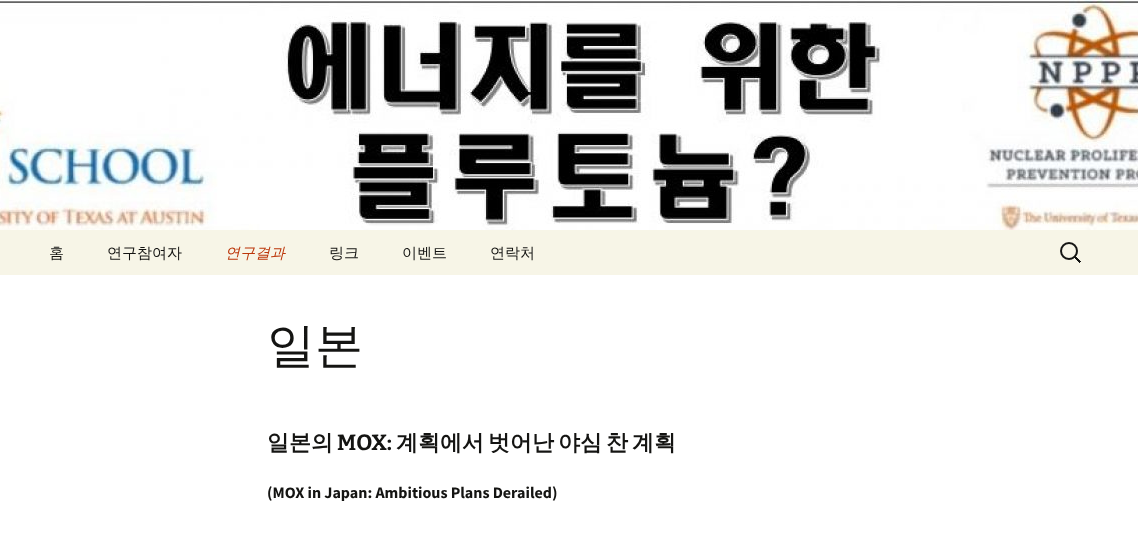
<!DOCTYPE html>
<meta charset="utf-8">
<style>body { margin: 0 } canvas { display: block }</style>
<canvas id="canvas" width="1138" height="534"></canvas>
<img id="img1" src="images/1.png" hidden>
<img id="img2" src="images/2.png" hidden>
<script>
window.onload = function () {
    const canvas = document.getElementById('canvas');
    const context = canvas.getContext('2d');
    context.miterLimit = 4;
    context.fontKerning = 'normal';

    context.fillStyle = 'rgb(255, 255, 255)';
    context.fillRect(0, 0, 1138, 534);
    context.drawImage(document.getElementById('img1'), 0, 0, 1138, 230);
    context.fillStyle = 'rgb(247, 245, 231)';
    context.fillRect(0, 230, 1138, 45);
    context.drawImage(document.getElementById('img2'), 1060, 242, 21, 21);
    context.font = '500 15px WenQuanYi Zen Hei';
    context.fillStyle = 'rgb(20, 20, 18)';
    context.fillText('홈', 49, 258);
    context.fillText('연구참여자', 107, 258);
    context.font = 'italic 500 15px WenQuanYi Zen Hei';
    context.fillStyle = 'rgb(188, 54, 10)';
    context.fillText('연구결과', 225, 258);
    context.font = '500 15px WenQuanYi Zen Hei';
    context.fillStyle = 'rgb(20, 20, 18)';
    context.fillText('링크', 329, 258);
    context.fillText('이벤트', 402, 258);
    context.fillText('연락처', 490, 258);
    context.font = '500 48px WenQuanYi Zen Hei';
    context.fillText('일본', 267, 362);
    context.font = 'bold 22px WenQuanYi Zen Hei';
    context.fillText('일본의', 267, 450);
    context.font = '100 22px Bitter';
    context.fillText('MOX:', 337, 450);
    context.font = 'bold 22px WenQuanYi Zen Hei';
    context.fillText('계획에서', 396, 450);
    context.fillText('벗어난', 488, 450);
    context.fillText('야심', 558, 450);
    context.fillText('찬', 606, 450);
    context.fillText('계획', 632, 450);
    context.font = 'bold 16px Source Sans Pro';
    context.fillText('(MOX in Japan: Ambitious Plans Derailed)', 267, 498);
};
</script>
